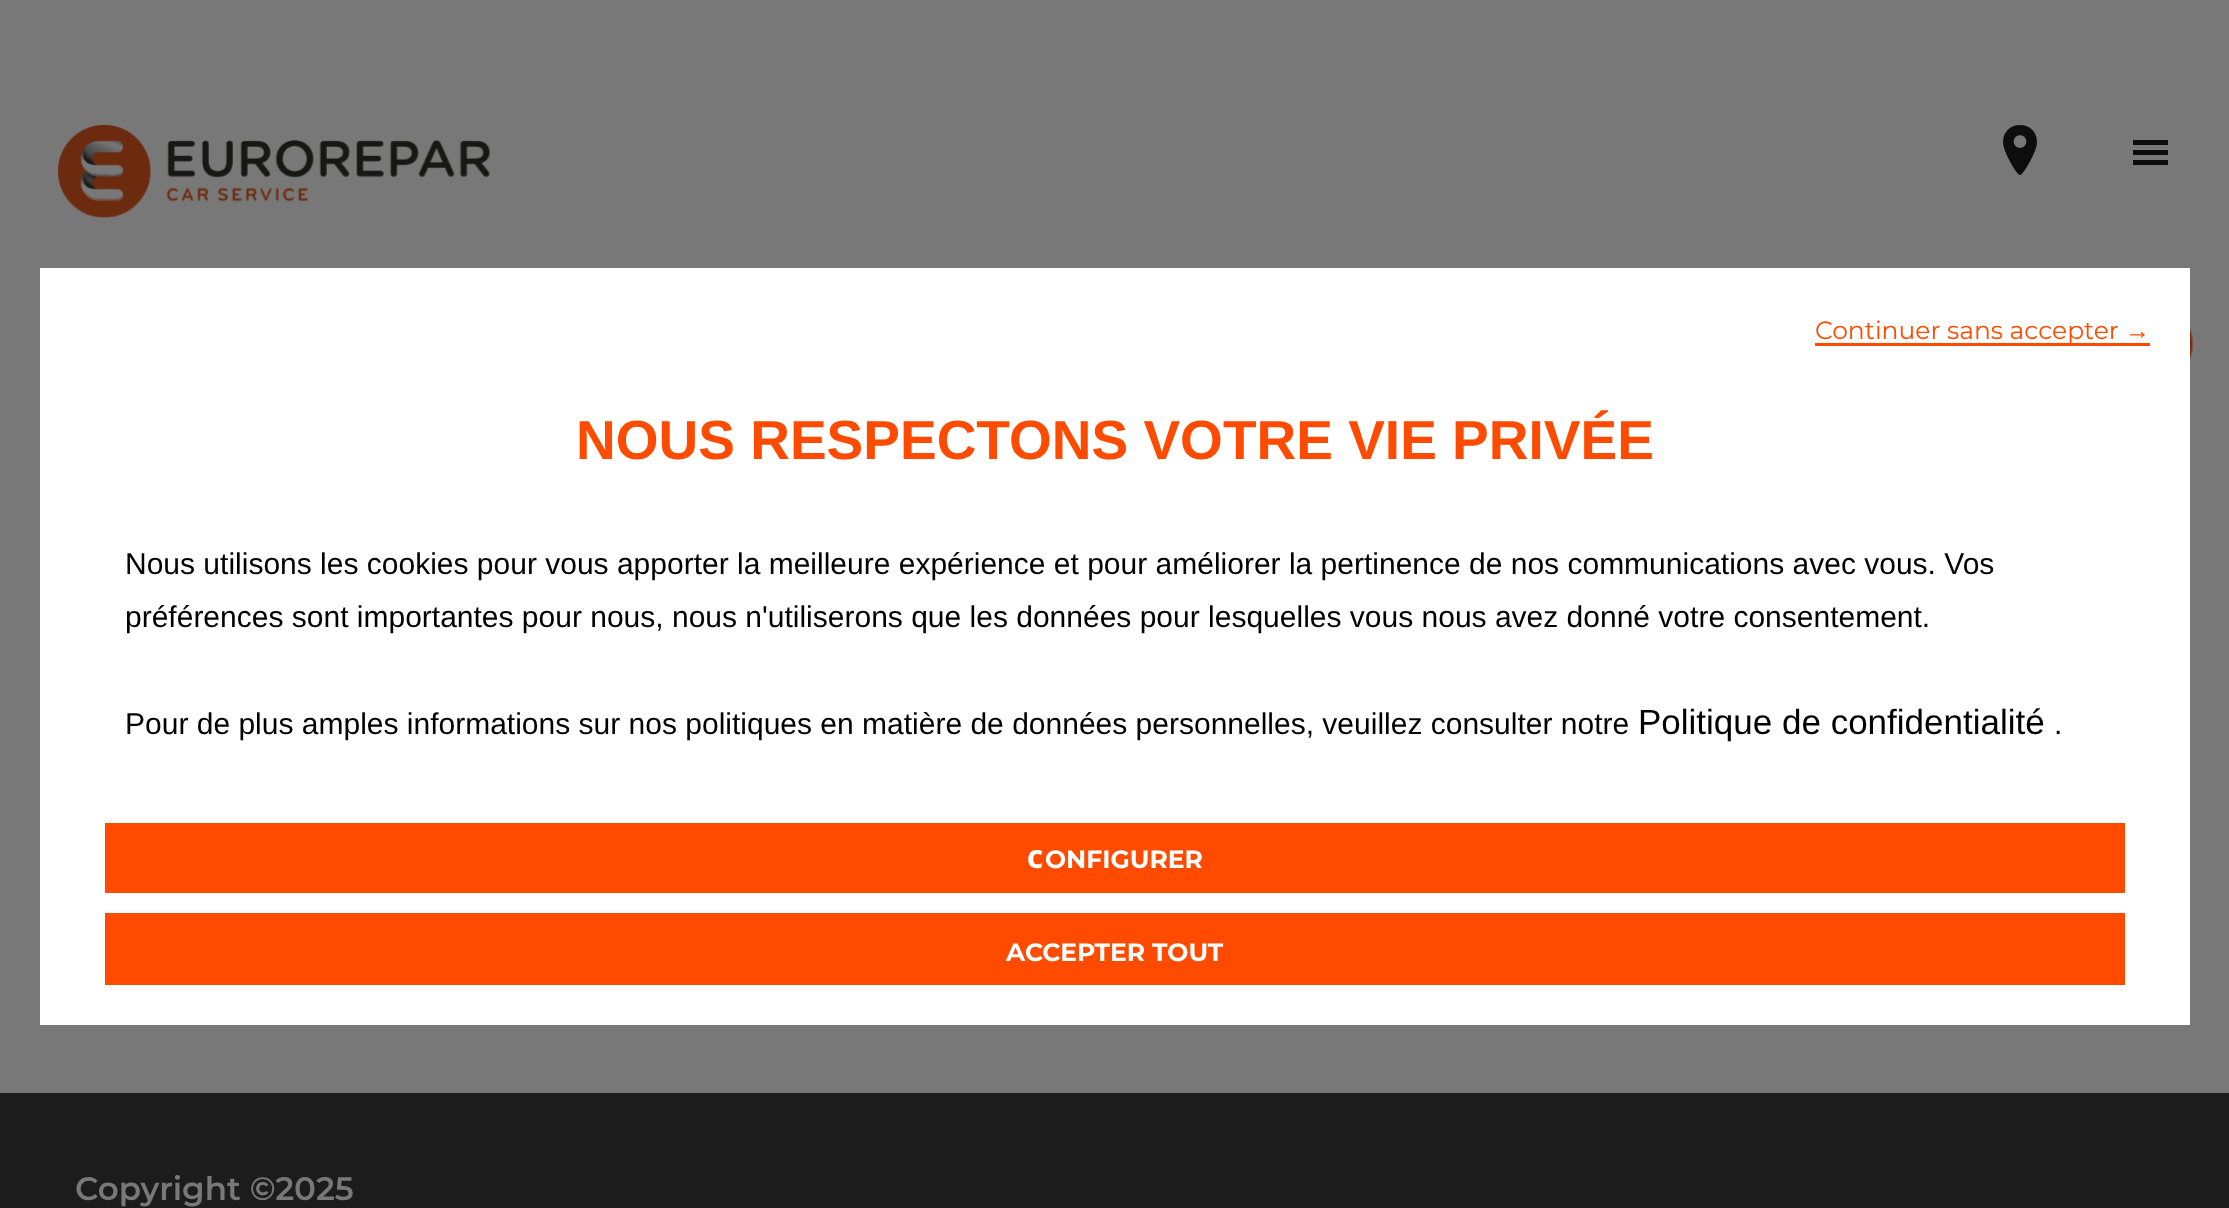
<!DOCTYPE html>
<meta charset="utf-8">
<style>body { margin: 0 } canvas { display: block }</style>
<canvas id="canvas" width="2229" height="1208"></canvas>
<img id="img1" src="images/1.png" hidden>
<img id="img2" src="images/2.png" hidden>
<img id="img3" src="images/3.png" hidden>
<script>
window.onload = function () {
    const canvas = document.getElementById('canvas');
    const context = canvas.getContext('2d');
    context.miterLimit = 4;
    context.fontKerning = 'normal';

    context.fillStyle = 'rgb(120, 120, 120)';
    context.fillRect(0, 0, 2229, 1208);
    context.drawImage(document.getElementById('img1'), 58, 125, 432, 93);
    context.drawImage(document.getElementById('img2'), 2003, 125, 34, 50);
    context.fillStyle = 'rgb(13, 13, 13)';
    context.fillRect(2133, 140, 35, 5);
    context.fillRect(2133, 150, 35, 5);
    context.fillRect(2133, 160, 35, 5);
    context.fillStyle = 'rgb(255, 255, 255)';
    context.fillRect(40, 268, 2150, 757);
    context.fillStyle = 'rgb(255, 75, 0)';
    context.fillRect(1815, 343, 335, 3);
    context.fillRect(105, 823, 2020, 70);
    context.fillRect(105, 913, 2020, 72);
    context.drawImage(document.getElementById('img3'), 2190, 326, 3, 35);
    context.fillStyle = 'rgb(28, 28, 28)';
    context.fillRect(0, 1093, 2229, 115);
    context.font = '25px Montserrat';
    context.fillStyle = 'rgb(255, 75, 0)';
    context.fillText('Continuer sans accepter', 1815, 339);
    context.font = '25px Liberation Sans';
    context.fillText('→', 2125, 339);
    context.font = 'bold 55px Liberation Sans';
    context.fillText('NOUS RESPECTONS VOTRE VIE PRIVÉE', 576, 459);
    context.font = '30px Liberation Sans';
    context.fillStyle = 'rgb(0, 0, 0)';
    context.fillText('Nous utilisons les cookies pour vous apporter la meilleure expérience et pour améliorer la pertinence de nos communications avec vous. Vos', 125, 574);
    context.fillText('préférences sont importantes pour nous, nous n\'utiliserons que les données pour lesquelles vous nous avez donné votre consentement.', 125, 627);
    context.fillText('Pour de plus amples informations sur nos politiques en matière de données personnelles, veuillez consulter notre', 125, 734);
    context.font = '35px Liberation Sans';
    context.fillText('Politique de confidentialité', 1638, 734);
    context.font = '30px Liberation Sans';
    context.fillText('.', 2054, 734);
    context.font = '900 25px Noto Sans';
    context.fillStyle = 'rgb(255, 255, 255)';
    context.fillText('C', 1027, 868);
    context.font = 'bold 25px Montserrat';
    context.fillText('ONFIGURER', 1045, 868);
    context.fillText('ACCEPTER TOUT', 1006, 961);
    context.font = '600 32.5px Montserrat';
    context.fillStyle = 'rgb(120, 120, 120)';
    context.fillText('Copyright ©2025', 75, 1200);
};
</script>
